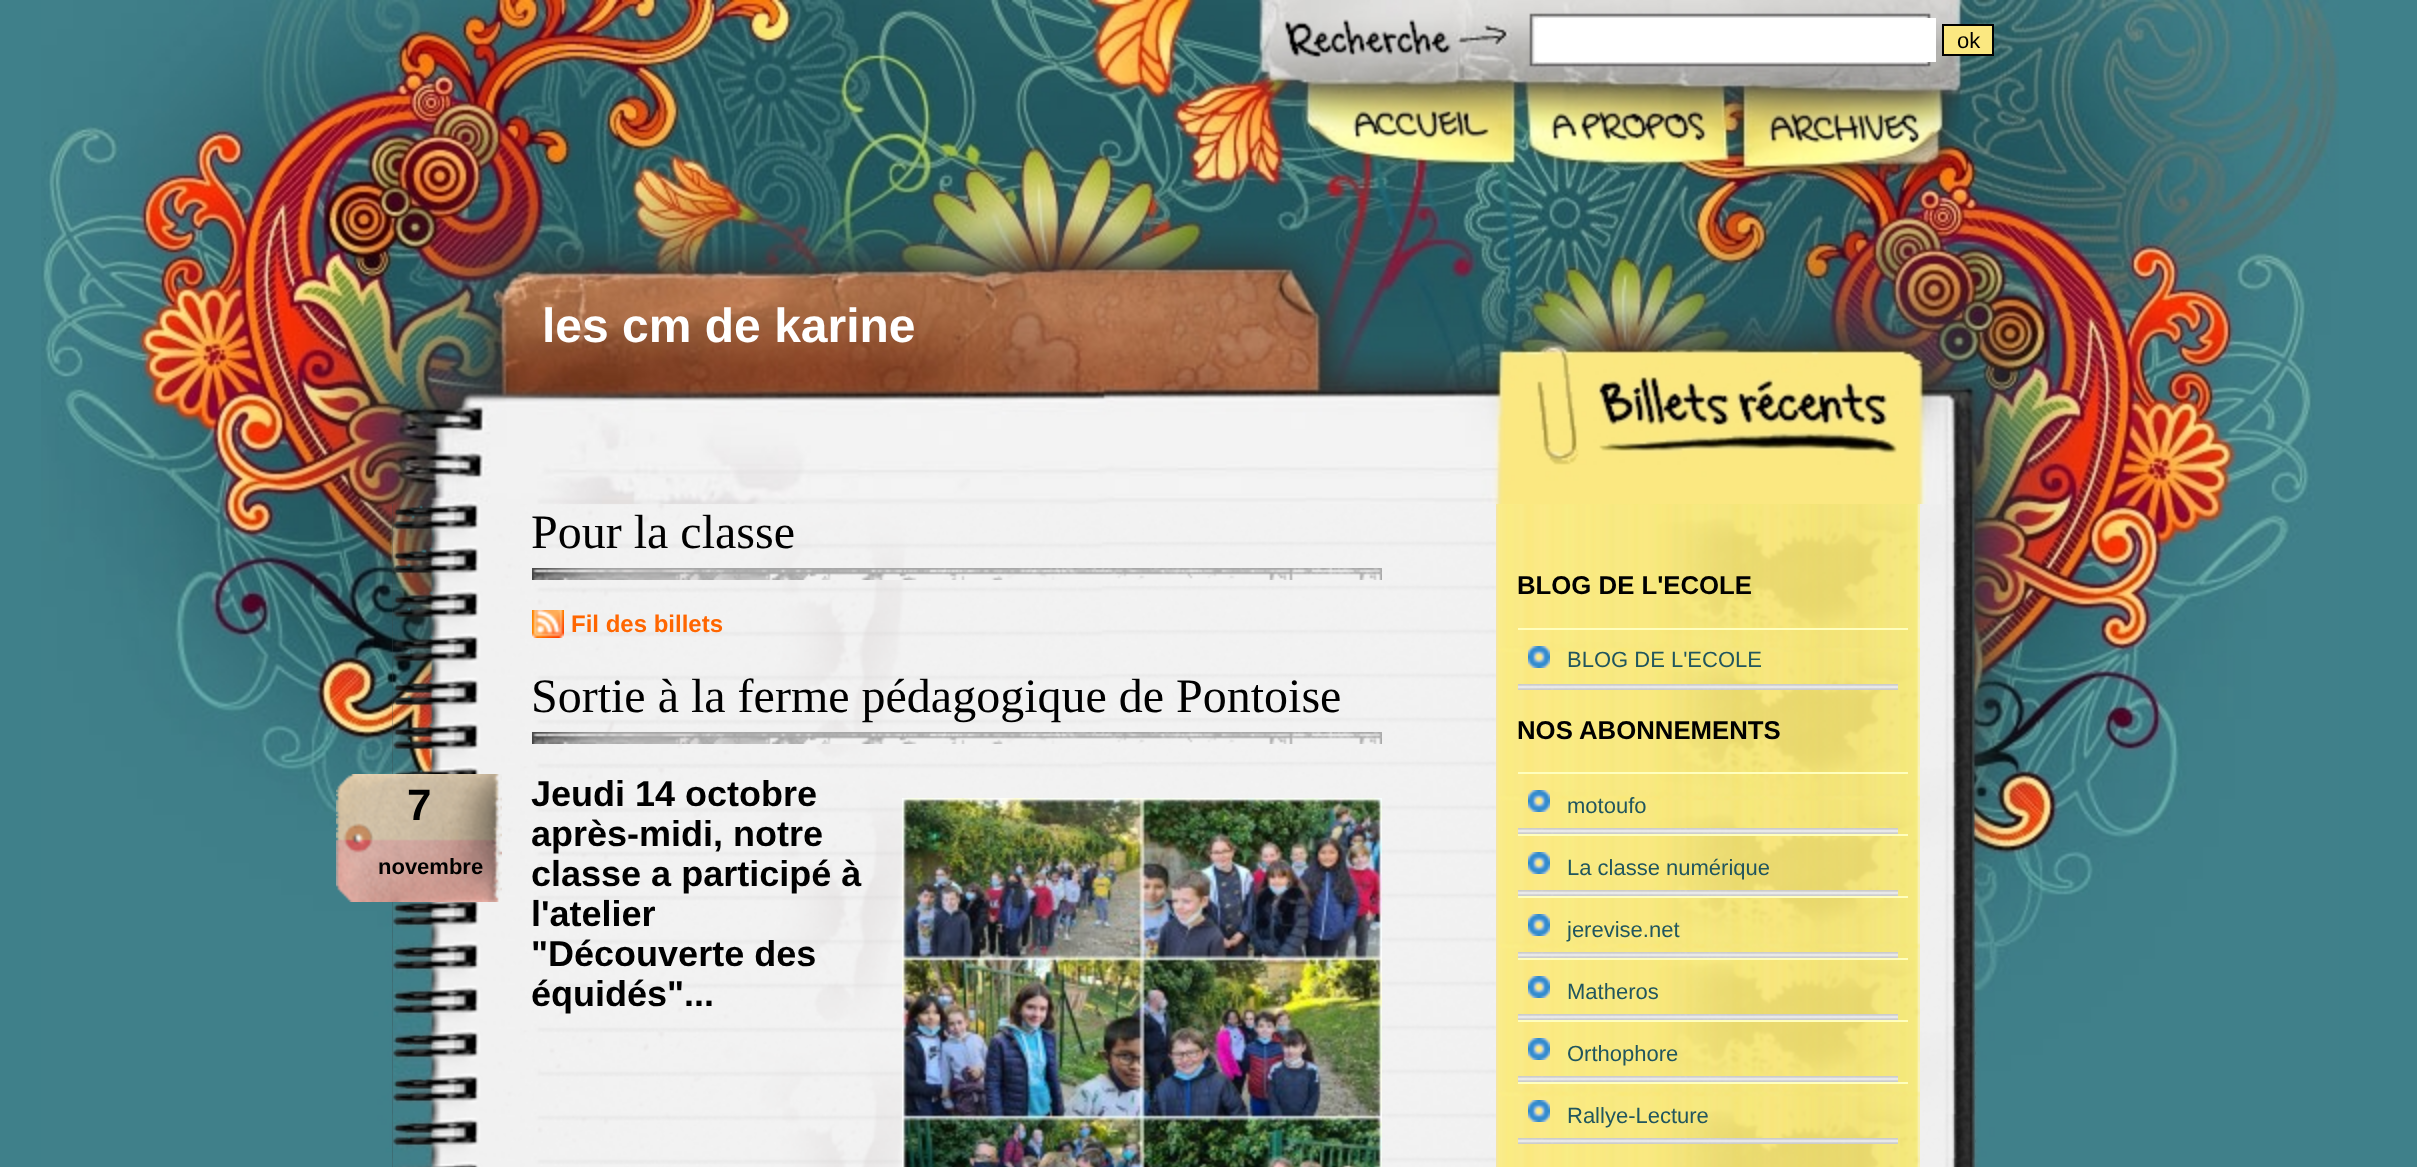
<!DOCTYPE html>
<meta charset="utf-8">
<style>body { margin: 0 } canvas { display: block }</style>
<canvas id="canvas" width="2417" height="1167"></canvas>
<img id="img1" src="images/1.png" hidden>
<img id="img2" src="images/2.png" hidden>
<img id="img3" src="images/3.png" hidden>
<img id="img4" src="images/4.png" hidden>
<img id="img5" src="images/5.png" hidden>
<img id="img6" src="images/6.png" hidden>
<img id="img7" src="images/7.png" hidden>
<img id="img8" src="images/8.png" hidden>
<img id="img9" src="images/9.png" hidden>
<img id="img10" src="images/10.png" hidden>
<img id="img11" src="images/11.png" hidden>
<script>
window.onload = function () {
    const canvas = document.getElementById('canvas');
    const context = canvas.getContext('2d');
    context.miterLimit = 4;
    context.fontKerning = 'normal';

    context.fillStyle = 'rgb(63, 128, 138)';
    context.fillRect(0, 0, 2417, 1167);
    context.drawImage(document.getElementById('img1'), 41, 0, 2298, 1167);
    context.drawImage(document.getElementById('img2'), 392, 504, 1584, 663);
    context.drawImage(document.getElementById('img3'), 532, 568, 850, 12);
    context.drawImage(document.getElementById('img4'), 532, 610, 32, 28);
    context.drawImage(document.getElementById('img3'), 532, 732, 850, 12);
    context.drawImage(document.getElementById('img5'), 336, 774, 166, 128);
    context.drawImage(document.getElementById('img6'), 902, 798, 480, 369);
    context.fillStyle = 'rgb(255, 255, 255)';
    context.fillRect(1538, 18, 398, 44);
    context.fillStyle = 'rgb(251, 232, 129)';
    context.beginPath();
    context.rect(1943, 25, 50, 30);
    context.fill();
    context.strokeStyle = 'rgb(0, 0, 0)';
    context.lineWidth = 2;
    context.stroke();
    context.drawImage(document.getElementById('img7'), 1496, 504, 424, 663);
    context.drawImage(document.getElementById('img8'), 1518, 684, 380, 6);
    context.drawImage(document.getElementById('img9'), 1528, 646, 22, 22);
    context.fillStyle = 'rgb(255, 255, 190)';
    context.fillRect(1518, 628, 390, 2);
    context.drawImage(document.getElementById('img8'), 1518, 828, 380, 6);
    context.drawImage(document.getElementById('img10'), 1528, 790, 22, 22);
    context.fillRect(1518, 772, 390, 2);
    context.drawImage(document.getElementById('img8'), 1518, 890, 380, 6);
    context.drawImage(document.getElementById('img11'), 1528, 852, 22, 22);
    context.fillRect(1518, 834, 390, 2);
    context.drawImage(document.getElementById('img8'), 1518, 952, 380, 6);
    context.drawImage(document.getElementById('img11'), 1528, 914, 22, 22);
    context.fillRect(1518, 896, 390, 2);
    context.drawImage(document.getElementById('img8'), 1518, 1014, 380, 6);
    context.drawImage(document.getElementById('img11'), 1528, 976, 22, 22);
    context.fillRect(1518, 958, 390, 2);
    context.drawImage(document.getElementById('img8'), 1518, 1076, 380, 6);
    context.drawImage(document.getElementById('img11'), 1528, 1038, 22, 22);
    context.fillRect(1518, 1020, 390, 2);
    context.drawImage(document.getElementById('img8'), 1518, 1138, 380, 6);
    context.drawImage(document.getElementById('img11'), 1528, 1100, 22, 22);
    context.fillRect(1518, 1082, 390, 2);
    context.font = '48px Liberation Serif';
    context.fillStyle = 'rgb(0, 0, 0)';
    context.fillText('Pour la classe', 531, 548);
    context.font = 'bold 24px Liberation Sans';
    context.fillStyle = 'rgb(255, 102, 0)';
    context.fillText('Fil des billets', 571, 632);
    context.font = '48px Liberation Serif';
    context.fillStyle = 'rgb(0, 0, 0)';
    context.fillText('Sortie à la ferme pédagogique de Pontoise', 531, 712);
    context.font = 'bold 44px Liberation Sans';
    context.fillText('7', 407, 820);
    context.font = 'bold 22px Liberation Sans';
    context.fillText('novembre', 378, 874);
    context.font = 'bold 36px Liberation Sans';
    context.fillText('Jeudi 14 octobre', 531, 806);
    context.fillText('après-midi, notre', 531, 846);
    context.fillText('classe a participé à', 531, 886);
    context.fillText('l\'atelier', 531, 926);
    context.fillText('"Découverte des', 531, 966);
    context.fillText('équidés"...', 531, 1006);
    context.font = '22px Liberation Sans';
    context.fillText('ok', 1957, 48);
    context.font = 'bold 25.75px Liberation Sans';
    context.fillText('BLOG DE L\'ECOLE', 1517, 594);
    context.font = '22px Liberation Sans';
    context.fillStyle = 'rgb(33, 86, 94)';
    context.fillText('BLOG DE L\'ECOLE', 1567, 667);
    context.font = 'bold 25.75px Liberation Sans';
    context.fillStyle = 'rgb(0, 0, 0)';
    context.fillText('NOS ABONNEMENTS', 1517, 739);
    context.font = '22px Liberation Sans';
    context.fillStyle = 'rgb(33, 86, 94)';
    context.fillText('motoufo', 1567, 813);
    context.fillText('La classe numérique', 1567, 875);
    context.fillText('jerevise.net', 1567, 937);
    context.fillText('Matheros', 1567, 999);
    context.fillText('Orthophore', 1567, 1061);
    context.fillText('Rallye-Lecture', 1567, 1123);
    context.font = 'bold 48px Liberation Sans';
    context.fillStyle = 'rgb(255, 255, 255)';
    context.fillText('les cm de karine', 542, 342);
};
</script>
